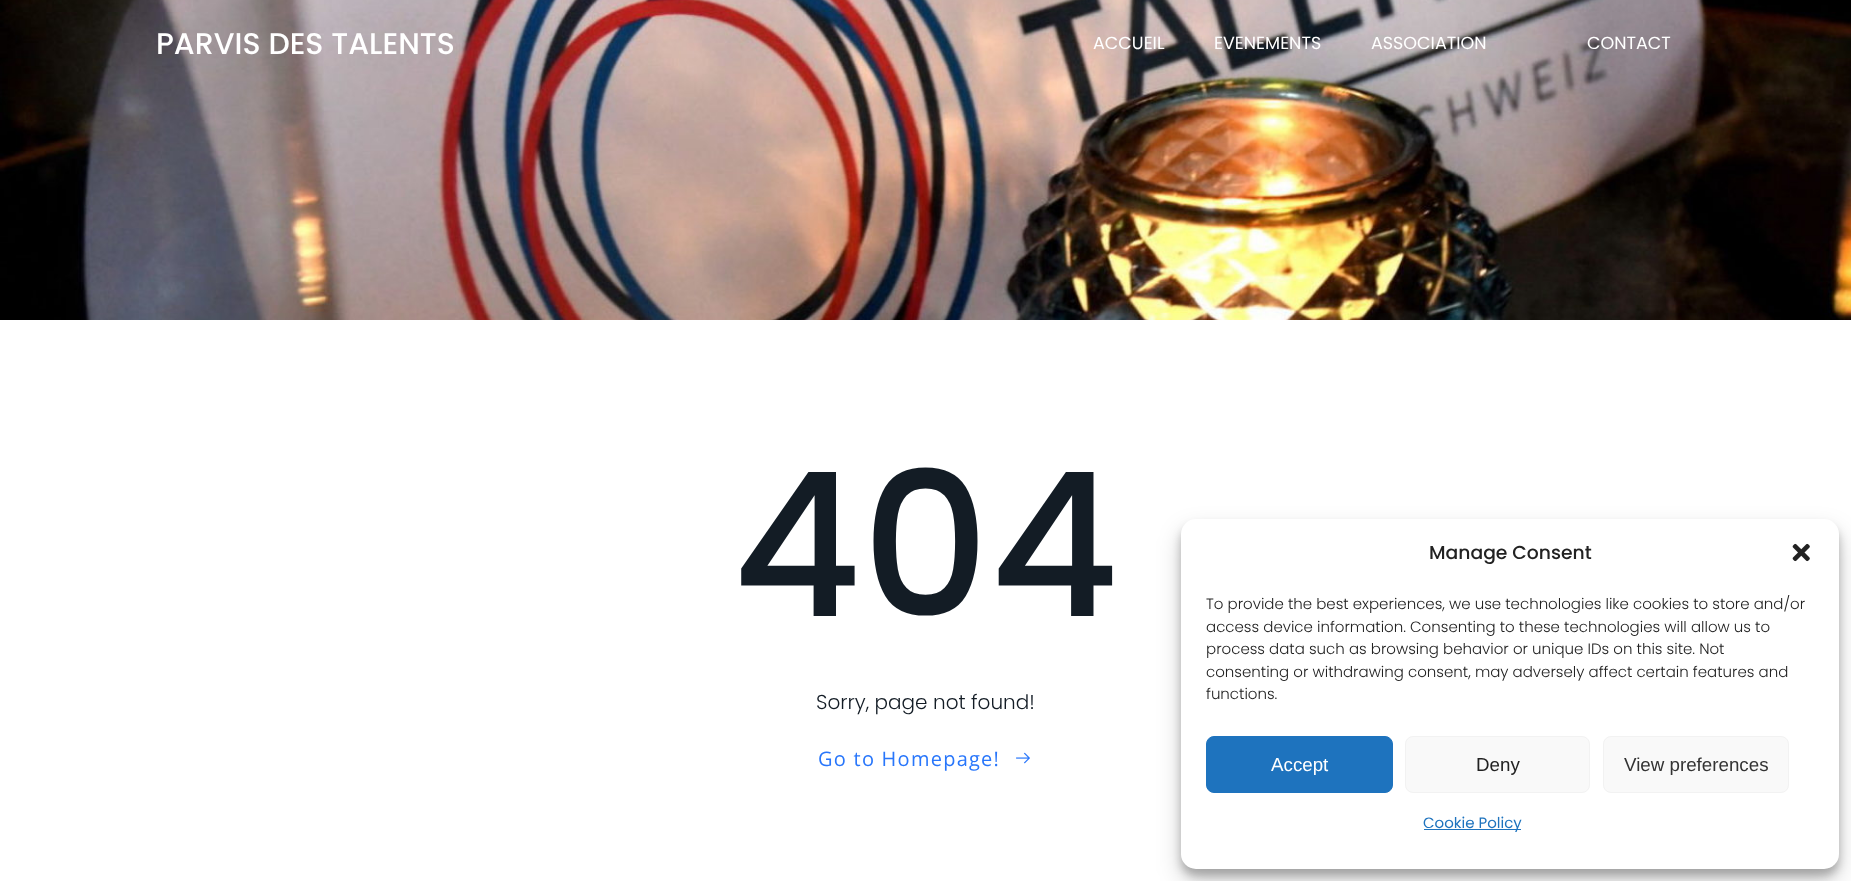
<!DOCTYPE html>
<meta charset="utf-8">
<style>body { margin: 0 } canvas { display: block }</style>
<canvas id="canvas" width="1851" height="881"></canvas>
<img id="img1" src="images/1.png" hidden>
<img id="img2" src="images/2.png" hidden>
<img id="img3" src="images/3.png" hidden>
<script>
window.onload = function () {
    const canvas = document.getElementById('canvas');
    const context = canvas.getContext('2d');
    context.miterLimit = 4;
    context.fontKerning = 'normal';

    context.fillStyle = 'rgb(255, 255, 255)';
    context.fillRect(0, 0, 1851, 881);
    context.drawImage(document.getElementById('img1'), 0, 0, 1851, 320);
    context.drawImage(document.getElementById('img2'), 1016, 752, 14, 12);
    context.fillStyle = 'rgba(0, 0, 0, 0.23)';
    context.filter = 'blur(4px)';
    context.beginPath();
    context.roundRect(1181, 526, 658, 350, 15);
    context.fill();
    context.filter = 'none';
    context.fillStyle = 'rgba(0, 0, 0, 0.19)';
    context.filter = 'blur(12.5px)';
    context.beginPath();
    context.roundRect(1181, 531, 658, 350, 15);
    context.fill();
    context.filter = 'none';
    context.fillStyle = 'rgb(255, 255, 255)';
    context.beginPath();
    context.roundRect(1181, 519, 658, 350, 15);
    context.fill();
    context.drawImage(document.getElementById('img3'), 1792, 543, 18, 19);
    context.fillStyle = 'rgb(30, 115, 190)';
    context.beginPath();
    context.roundRect(1206.5, 736.5, 186, 56, 7.5);
    context.fill();
    context.strokeStyle = 'rgb(30, 115, 190)';
    context.stroke();
    context.fillStyle = 'rgb(249, 249, 249)';
    context.beginPath();
    context.roundRect(1405.5, 736.5, 184, 56, 7.5);
    context.fill();
    context.strokeStyle = 'rgb(242, 242, 242)';
    context.stroke();
    context.beginPath();
    context.roundRect(1603.5, 736.5, 185, 56, 7.5);
    context.fill();
    context.stroke();
    context.fillStyle = 'rgb(30, 115, 190)';
    context.fillRect(1424, 829, 97, 1);
    context.font = '500 30px Poppins';
    context.fillStyle = 'rgb(255, 255, 255)';
    context.fillText('PARVIS DES TALENTS', 156, 54);
    context.font = '17.5px Poppins';
    context.fillText('ACCUEIL', 1093, 49);
    context.fillText('EVENEMENTS', 1214, 49);
    context.fillText('ASSOCIATION', 1371, 49);
    context.fillText('CONTACT', 1587, 49);
    context.font = '500 200px Poppins';
    context.fillStyle = 'rgb(19, 28, 37)';
    context.fillText('404', 732, 616);
    context.font = '300 20px Poppins';
    context.fillText('Sorry, page not found!', 816, 709);
    context.letterSpacing = '1.25px';
    context.font = '20px Open Sans';
    context.fillStyle = 'rgb(40, 118, 251)';
    context.fillText('Go to Homepage!', 818, 766);
    context.letterSpacing = '0px';
    context.font = '500 18.75px Poppins';
    context.fillStyle = 'rgb(34, 34, 34)';
    context.fillText('Manage Consent', 1429, 559);
    context.font = '300 15px Poppins';
    context.fillText('To provide the best experiences, we use technologies like cookies to store and/or', 1206, 609);
    context.fillText('access device information. Consenting to these technologies will allow us to', 1206, 632);
    context.fillText('process data such as browsing behavior or unique IDs on this site. Not', 1206, 654);
    context.fillText('consenting or withdrawing consent, may adversely affect certain features and', 1206, 677);
    context.fillText('functions.', 1206, 699);
    context.font = '18.75px Liberation Sans';
    context.fillStyle = 'rgb(255, 255, 255)';
    context.fillText('Accept', 1271, 771);
    context.fillStyle = 'rgb(34, 34, 34)';
    context.fillText('Deny', 1476, 771);
    context.fillStyle = 'rgb(51, 51, 51)';
    context.fillText('View preferences', 1624, 771);
    context.font = '15px Poppins';
    context.fillStyle = 'rgb(30, 115, 190)';
    context.fillText('Cookie Policy', 1423, 828);
};
</script>
